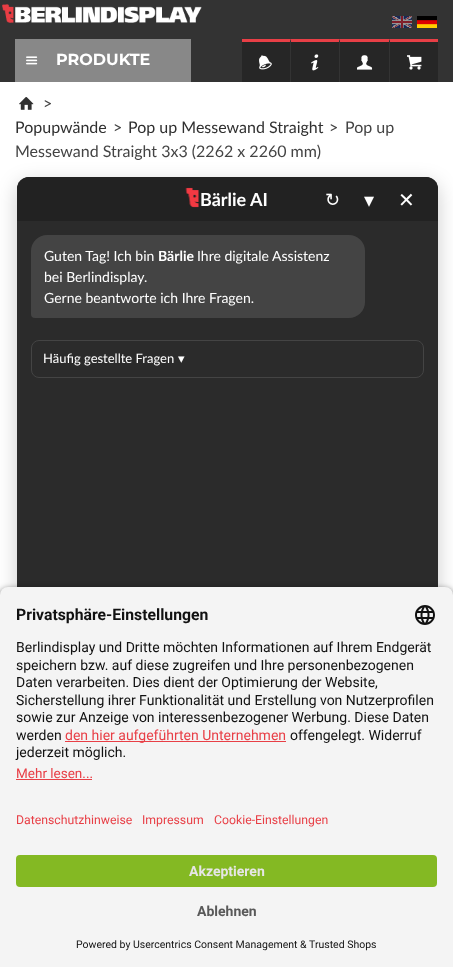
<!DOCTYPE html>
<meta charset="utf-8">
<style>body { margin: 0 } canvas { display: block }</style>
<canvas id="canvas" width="453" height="967"></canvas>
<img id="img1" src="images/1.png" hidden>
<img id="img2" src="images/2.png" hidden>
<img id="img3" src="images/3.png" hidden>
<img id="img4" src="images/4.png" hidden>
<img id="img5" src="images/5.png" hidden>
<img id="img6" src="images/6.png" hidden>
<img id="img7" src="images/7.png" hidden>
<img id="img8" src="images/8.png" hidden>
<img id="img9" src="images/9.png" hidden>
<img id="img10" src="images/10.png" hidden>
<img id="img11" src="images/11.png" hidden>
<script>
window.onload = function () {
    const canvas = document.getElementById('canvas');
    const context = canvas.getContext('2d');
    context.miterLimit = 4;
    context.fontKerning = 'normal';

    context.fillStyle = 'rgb(51, 51, 51)';
    context.fillRect(0, 0, 453, 967);
    context.drawImage(document.getElementById('img1'), 2, 4, 200, 19);
    context.drawImage(document.getElementById('img2'), 392, 16, 20, 12);
    context.drawImage(document.getElementById('img3'), 417, 16, 20, 12);
    context.fillStyle = 'rgb(136, 136, 136)';
    context.fillRect(15, 39, 176, 43);
    context.drawImage(document.getElementById('img4'), 26, 56, 12, 9);
    context.fillStyle = 'rgb(38, 38, 38)';
    context.fillRect(242, 39, 148, 43);
    context.fillStyle = 'rgb(232, 63, 70)';
    context.beginPath();
    context.moveTo(242, 39);
    context.lineTo(291, 39);
    context.lineTo(290, 42);
    context.lineTo(242, 42);
    context.closePath();
    context.fill();
    context.fillStyle = 'rgb(51, 51, 51)';
    context.beginPath();
    context.moveTo(291, 39);
    context.lineTo(291, 82);
    context.lineTo(290, 82);
    context.lineTo(290, 42);
    context.closePath();
    context.fill();
    context.drawImage(document.getElementById('img5'), 259, 55, 13, 15);
    context.fillStyle = 'rgb(232, 63, 70)';
    context.beginPath();
    context.moveTo(291, 39);
    context.lineTo(340, 39);
    context.lineTo(339, 42);
    context.lineTo(291, 42);
    context.closePath();
    context.fill();
    context.fillStyle = 'rgb(51, 51, 51)';
    context.beginPath();
    context.moveTo(340, 39);
    context.lineTo(340, 82);
    context.lineTo(339, 82);
    context.lineTo(339, 42);
    context.closePath();
    context.fill();
    context.drawImage(document.getElementById('img6'), 311, 54, 8, 17);
    context.fillStyle = 'rgb(232, 63, 70)';
    context.beginPath();
    context.moveTo(340, 39);
    context.lineTo(390, 39);
    context.lineTo(389, 42);
    context.lineTo(340, 42);
    context.closePath();
    context.fill();
    context.fillStyle = 'rgb(51, 51, 51)';
    context.beginPath();
    context.moveTo(390, 39);
    context.lineTo(390, 82);
    context.lineTo(389, 82);
    context.lineTo(389, 42);
    context.closePath();
    context.fill();
    context.drawImage(document.getElementById('img7'), 357, 55, 16, 15);
    context.fillStyle = 'rgb(38, 38, 38)';
    context.fillRect(390, 42, 48, 40);
    context.fillStyle = 'rgb(232, 63, 70)';
    context.fillRect(390, 39, 48, 3);
    context.drawImage(document.getElementById('img8'), 407, 55, 15, 15);
    context.fillStyle = 'rgb(255, 255, 255)';
    context.fillRect(0, 82, 453, 513);
    context.drawImage(document.getElementById('img9'), 19, 97, 15, 13);
    context.fillStyle = 'rgba(0, 0, 0, 0.2)';
    context.filter = 'blur(10px)';
    context.beginPath();
    context.roundRect(17, 183, 421, 774, 12);
    context.fill();
    context.filter = 'none';
    context.fillStyle = 'rgb(43, 43, 43)';
    context.beginPath();
    context.roundRect(17, 177, 421, 774, 12);
    context.fill();
    context.fillStyle = 'rgb(34, 34, 34)';
    context.beginPath();
    context.roundRect(17, 177, 421, 44, [12, 12, 0, 0]);
    context.fill();
    context.drawImage(document.getElementById('img10'), 185, 187, 14, 21);
    context.fillStyle = 'rgb(68, 68, 68)';
    context.beginPath();
    context.roundRect(31, 235, 334, 83, [16, 16, 16, 4]);
    context.fill();
    context.beginPath();
    context.roundRect(31.5, 340.5, 392, 37, 7.5);
    context.strokeStyle = 'rgb(68, 68, 68)';
    context.stroke();
    context.fillStyle = 'rgba(0, 0, 0, 0.8)';
    context.filter = 'blur(3.5px)';
    context.beginPath();
    context.roundRect(0, 590, 453, 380, 8);
    context.fill();
    context.filter = 'none';
    context.fillStyle = 'rgb(244, 244, 244)';
    context.beginPath();
    context.roundRect(0, 587, 453, 210, [8, 8, 0, 0]);
    context.fill();
    context.drawImage(document.getElementById('img11'), 415, 605, 20, 20);
    context.fillStyle = 'rgb(232, 63, 70)';
    context.fillRect(65, 741, 221, 1);
    context.fillRect(16, 779, 76, 1);
    context.fillStyle = 'rgb(244, 244, 244)';
    context.fillRect(0, 797, 453, 170);
    context.fillStyle = 'rgb(132, 185, 35)';
    context.beginPath();
    context.roundRect(16, 855, 421, 32, 4);
    context.fill();
    context.font = '100 16px Montserrat';
    context.fillStyle = 'rgb(255, 255, 255)';
    context.fillText('PRODUKTE', 56, 65);
    context.font = '16px Lato';
    context.fillStyle = 'rgb(68, 68, 68)';
    context.fillText('>', 43, 109);
    context.fillStyle = 'rgb(48, 48, 48)';
    context.fillText('Popupwände', 15, 133);
    context.fillStyle = 'rgb(68, 68, 68)';
    context.fillText('>', 113, 133);
    context.fillStyle = 'rgb(48, 48, 48)';
    context.fillText('Pop up Messewand Straight', 128, 133);
    context.fillStyle = 'rgb(68, 68, 68)';
    context.fillText('>', 329, 133);
    context.fillText('Pop up', 345, 133);
    context.fillText('Messewand Straight 3x3 (2262 x 2260 mm)', 15, 157);
    context.font = 'bold 18px Lato';
    context.fillStyle = 'rgb(255, 255, 255)';
    context.fillText('Bärlie AI', 200, 206);
    context.font = '18px DejaVu Sans';
    context.fillText('↻', 325, 206);
    context.font = '20px DejaVu Sans';
    context.fillText('▾', 364, 207);
    context.fillText('✕', 398, 207);
    context.font = '14px Lato';
    context.fillText('Guten Tag! Ich bin', 44, 261);
    context.font = 'bold 14px Lato';
    context.fillText('Bärlie', 158, 261);
    context.font = '14px Lato';
    context.fillText('Ihre digitale Assistenz', 197, 261);
    context.fillText('bei Berlindisplay.', 44, 282);
    context.fillText('Gerne beantworte ich Ihre Fragen.', 44, 303);
    context.font = '13px Lato';
    context.fillText('Häufig gestellte Fragen', 43, 363);
    context.font = '13px DejaVu Sans';
    context.fillText('▾', 178, 363);
    context.font = 'bold 15.75px Roboto';
    context.fillStyle = 'rgb(17, 17, 17)';
    context.fillText('Privatsphäre-Einstellungen', 16, 620);
    context.font = '14px Roboto';
    context.fillText('Berlindisplay und Dritte möchten Informationen auf Ihrem Endgerät', 16, 652);
    context.fillText('speichern bzw. auf diese zugreifen und Ihre personenbezogenen', 16, 670);
    context.fillText('Daten verarbeiten. Dies dient der Optimierung der Website,', 16, 687);
    context.fillText('Sicherstellung ihrer Funktionalität und Erstellung von Nutzerprofilen', 16, 705);
    context.fillText('sowie zur Anzeige von interessenbezogener Werbung. Diese Daten', 16, 722);
    context.fillText('werden', 16, 740);
    context.fillStyle = 'rgb(232, 63, 70)';
    context.fillText('den hier aufgeführten Unternehmen', 65, 740);
    context.fillStyle = 'rgb(17, 17, 17)';
    context.fillText('offengelegt. Widerruf', 290, 740);
    context.fillText('jederzeit möglich.', 16, 757);
    context.font = '13.5px Roboto';
    context.fillStyle = 'rgb(232, 63, 70)';
    context.fillText('Mehr lesen...', 16, 778);
    context.font = '12.25px Roboto';
    context.fillText('Datenschutzhinweise', 16, 824);
    context.fillText('Impressum', 142, 824);
    context.fillText('Cookie-Einstellungen', 214, 824);
    context.font = 'bold 14px Roboto';
    context.fillStyle = 'rgb(230, 230, 230)';
    context.fillText('Akzeptieren', 189, 876);
    context.fillStyle = 'rgb(89, 89, 89)';
    context.fillText('Ablehnen', 197, 916);
    context.font = '10.5px Roboto';
    context.fillStyle = 'rgb(17, 17, 17)';
    context.fillText('Powered by Usercentrics Consent Management & Trusted Shops', 76, 948);
};
</script>
